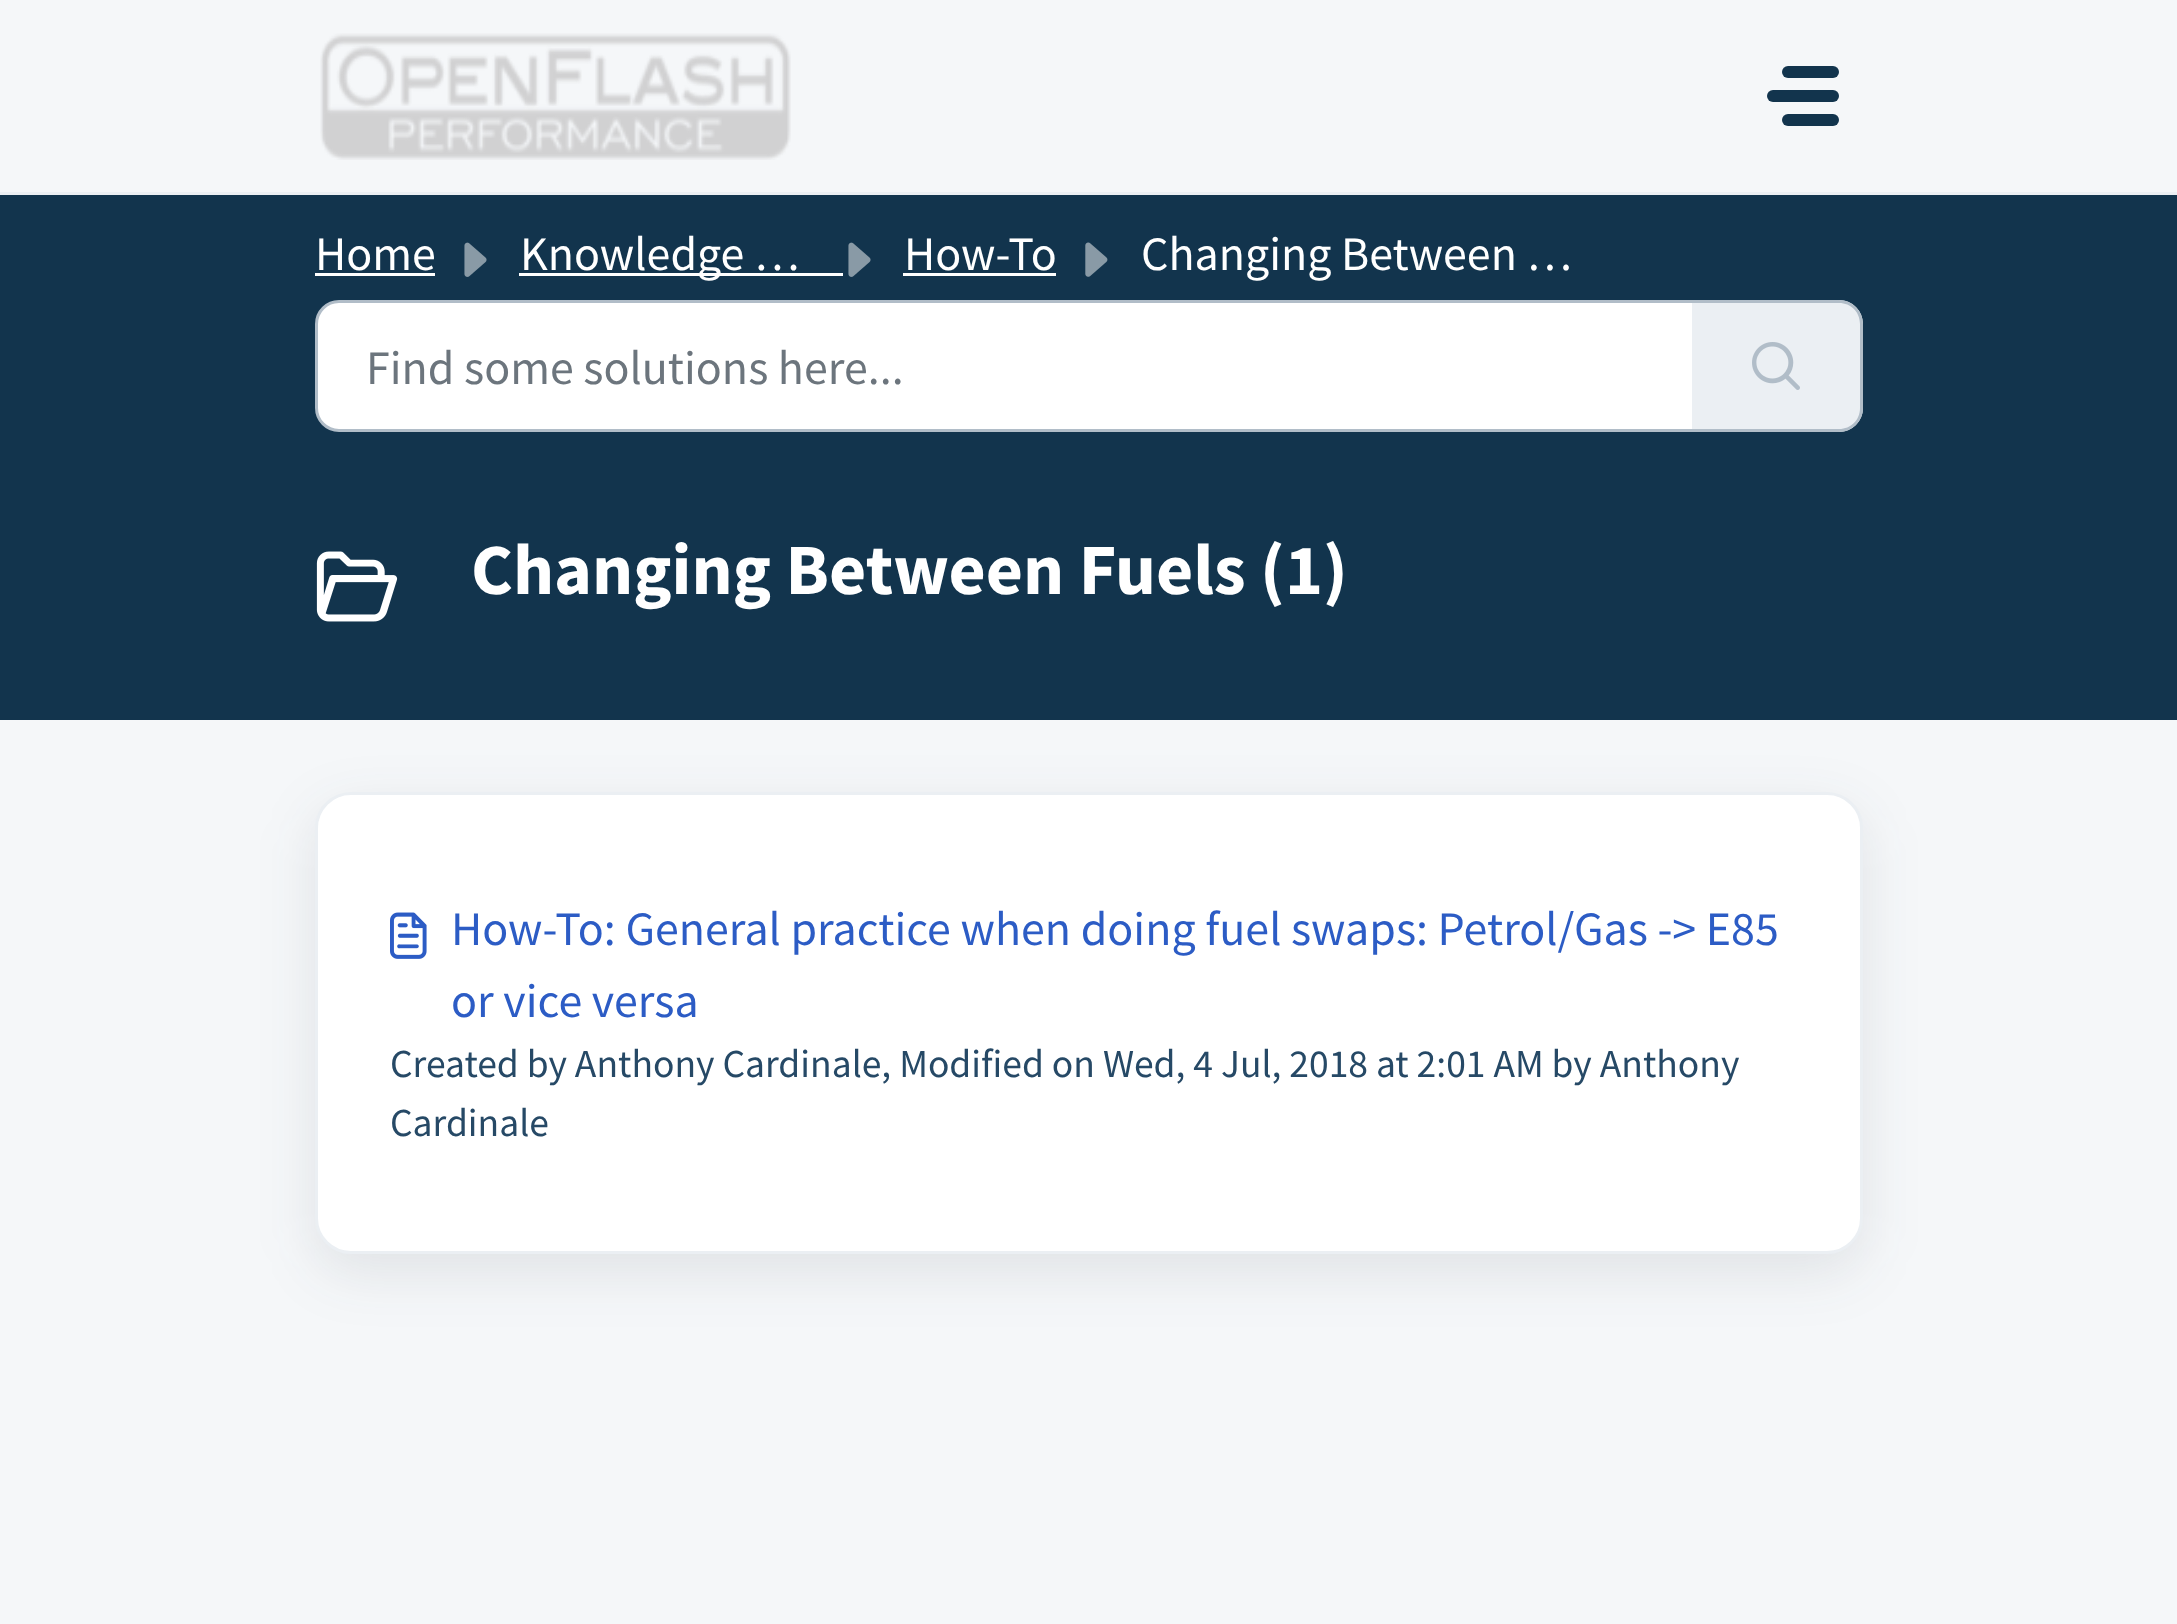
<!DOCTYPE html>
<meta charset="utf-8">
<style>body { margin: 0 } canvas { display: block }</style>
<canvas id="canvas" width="2177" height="1624"></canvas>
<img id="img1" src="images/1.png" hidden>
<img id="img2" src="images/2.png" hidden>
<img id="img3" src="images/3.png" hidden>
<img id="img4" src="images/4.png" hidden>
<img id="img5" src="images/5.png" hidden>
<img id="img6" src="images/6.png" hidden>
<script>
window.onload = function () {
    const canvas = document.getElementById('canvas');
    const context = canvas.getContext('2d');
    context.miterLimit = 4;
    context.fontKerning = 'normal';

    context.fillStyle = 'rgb(245, 247, 249)';
    context.fillRect(0, 0, 2177, 1624);
    context.fillStyle = 'rgb(235, 239, 243)';
    context.fillRect(0, 192, 2177, 3);
    context.drawImage(document.getElementById('img1'), 320, 33, 471, 127);
    context.fillStyle = 'rgb(18, 52, 77)';
    context.beginPath();
    context.roundRect(1782, 66, 57, 12, 6);
    context.fill();
    context.beginPath();
    context.roundRect(1767, 90, 72, 12, 6);
    context.fill();
    context.beginPath();
    context.roundRect(1782, 114, 57, 12, 6);
    context.fill();
    context.fillRect(0, 195, 2177, 525);
    context.fillStyle = 'rgb(255, 255, 255)';
    context.fillRect(315, 273, 120, 3);
    context.drawImage(document.getElementById('img2'), 464, 242, 23, 35);
    context.fillRect(519, 273, 324, 3);
    context.drawImage(document.getElementById('img2'), 848, 242, 23, 35);
    context.fillRect(903, 273, 153, 3);
    context.drawImage(document.getElementById('img3'), 1085, 242, 23, 35);
    context.beginPath();
    context.roundRect(316.5, 301.5, 1377, 129, [22.5, 0, 0, 22.5]);
    context.fill();
    context.strokeStyle = 'rgb(177, 189, 200)';
    context.lineWidth = 3;
    context.stroke();
    context.fillStyle = 'rgb(235, 239, 243)';
    context.beginPath();
    context.roundRect(1692, 300, 171, 132, [0, 24, 24, 0]);
    context.fill();
    context.fillStyle = 'rgb(177, 189, 200)';
    context.beginPath();
    context.moveTo(1692, 300);
    context.lineTo(1839, 300);
    context.bezierCurveTo(1852, 300, 1863, 311, 1863, 324);
    context.lineTo(1863, 408);
    context.bezierCurveTo(1863, 421, 1852, 432, 1839, 432);
    context.lineTo(1692, 432);
    context.closePath();
    context.moveTo(1692, 303);
    context.lineTo(1839, 303);
    context.bezierCurveTo(1851, 303, 1860, 312, 1860, 324);
    context.lineTo(1860, 408);
    context.bezierCurveTo(1860, 420, 1851, 429, 1839, 429);
    context.lineTo(1692, 429);
    context.closePath();
    context.fill('evenodd');
    context.drawImage(document.getElementById('img4'), 1752, 342, 48, 48);
    context.drawImage(document.getElementById('img5'), 316, 551, 82, 71);
    context.fillStyle = 'rgba(39, 49, 58, 0.1)';
    context.filter = 'blur(28.5px)';
    context.beginPath();
    context.roundRect(315, 810, 1548, 462, 36);
    context.fill();
    context.filter = 'none';
    context.fillStyle = 'rgb(255, 255, 255)';
    context.beginPath();
    context.roundRect(316.5, 793.5, 1545, 459, 34.5);
    context.fill();
    context.strokeStyle = 'rgb(235, 239, 243)';
    context.stroke();
    context.drawImage(document.getElementById('img6'), 390, 912, 37, 47);
    context.font = '48px Source Sans Pro';
    context.fillText('Home', 315, 270);
    context.fillText('Knowledge …', 520, 270);
    context.fillText('How-To', 904, 270);
    context.fillText('Changing Between …', 1141, 270);
    context.fillStyle = 'rgb(108, 117, 125)';
    context.fillText('Find some solutions here...', 366, 384);
    context.font = 'bold 72px Source Sans Pro';
    context.fillStyle = 'rgb(255, 255, 255)';
    context.fillText('Changing Between Fuels (1)', 471, 594);
    context.font = '48px Source Sans Pro';
    context.fillStyle = 'rgb(44, 92, 197)';
    context.fillText('How-To: General practice when doing fuel swaps: Petrol/Gas -> E85', 451, 945);
    context.fillText('or vice versa', 451, 1017);
    context.font = '39.6px Source Sans Pro';
    context.fillStyle = 'rgb(38, 73, 102)';
    context.fillText('Created by Anthony Cardinale, Modified on Wed, 4 Jul, 2018 at 2:01 AM by Anthony', 390, 1077);
    context.fillText('Cardinale', 390, 1136);
};
</script>
